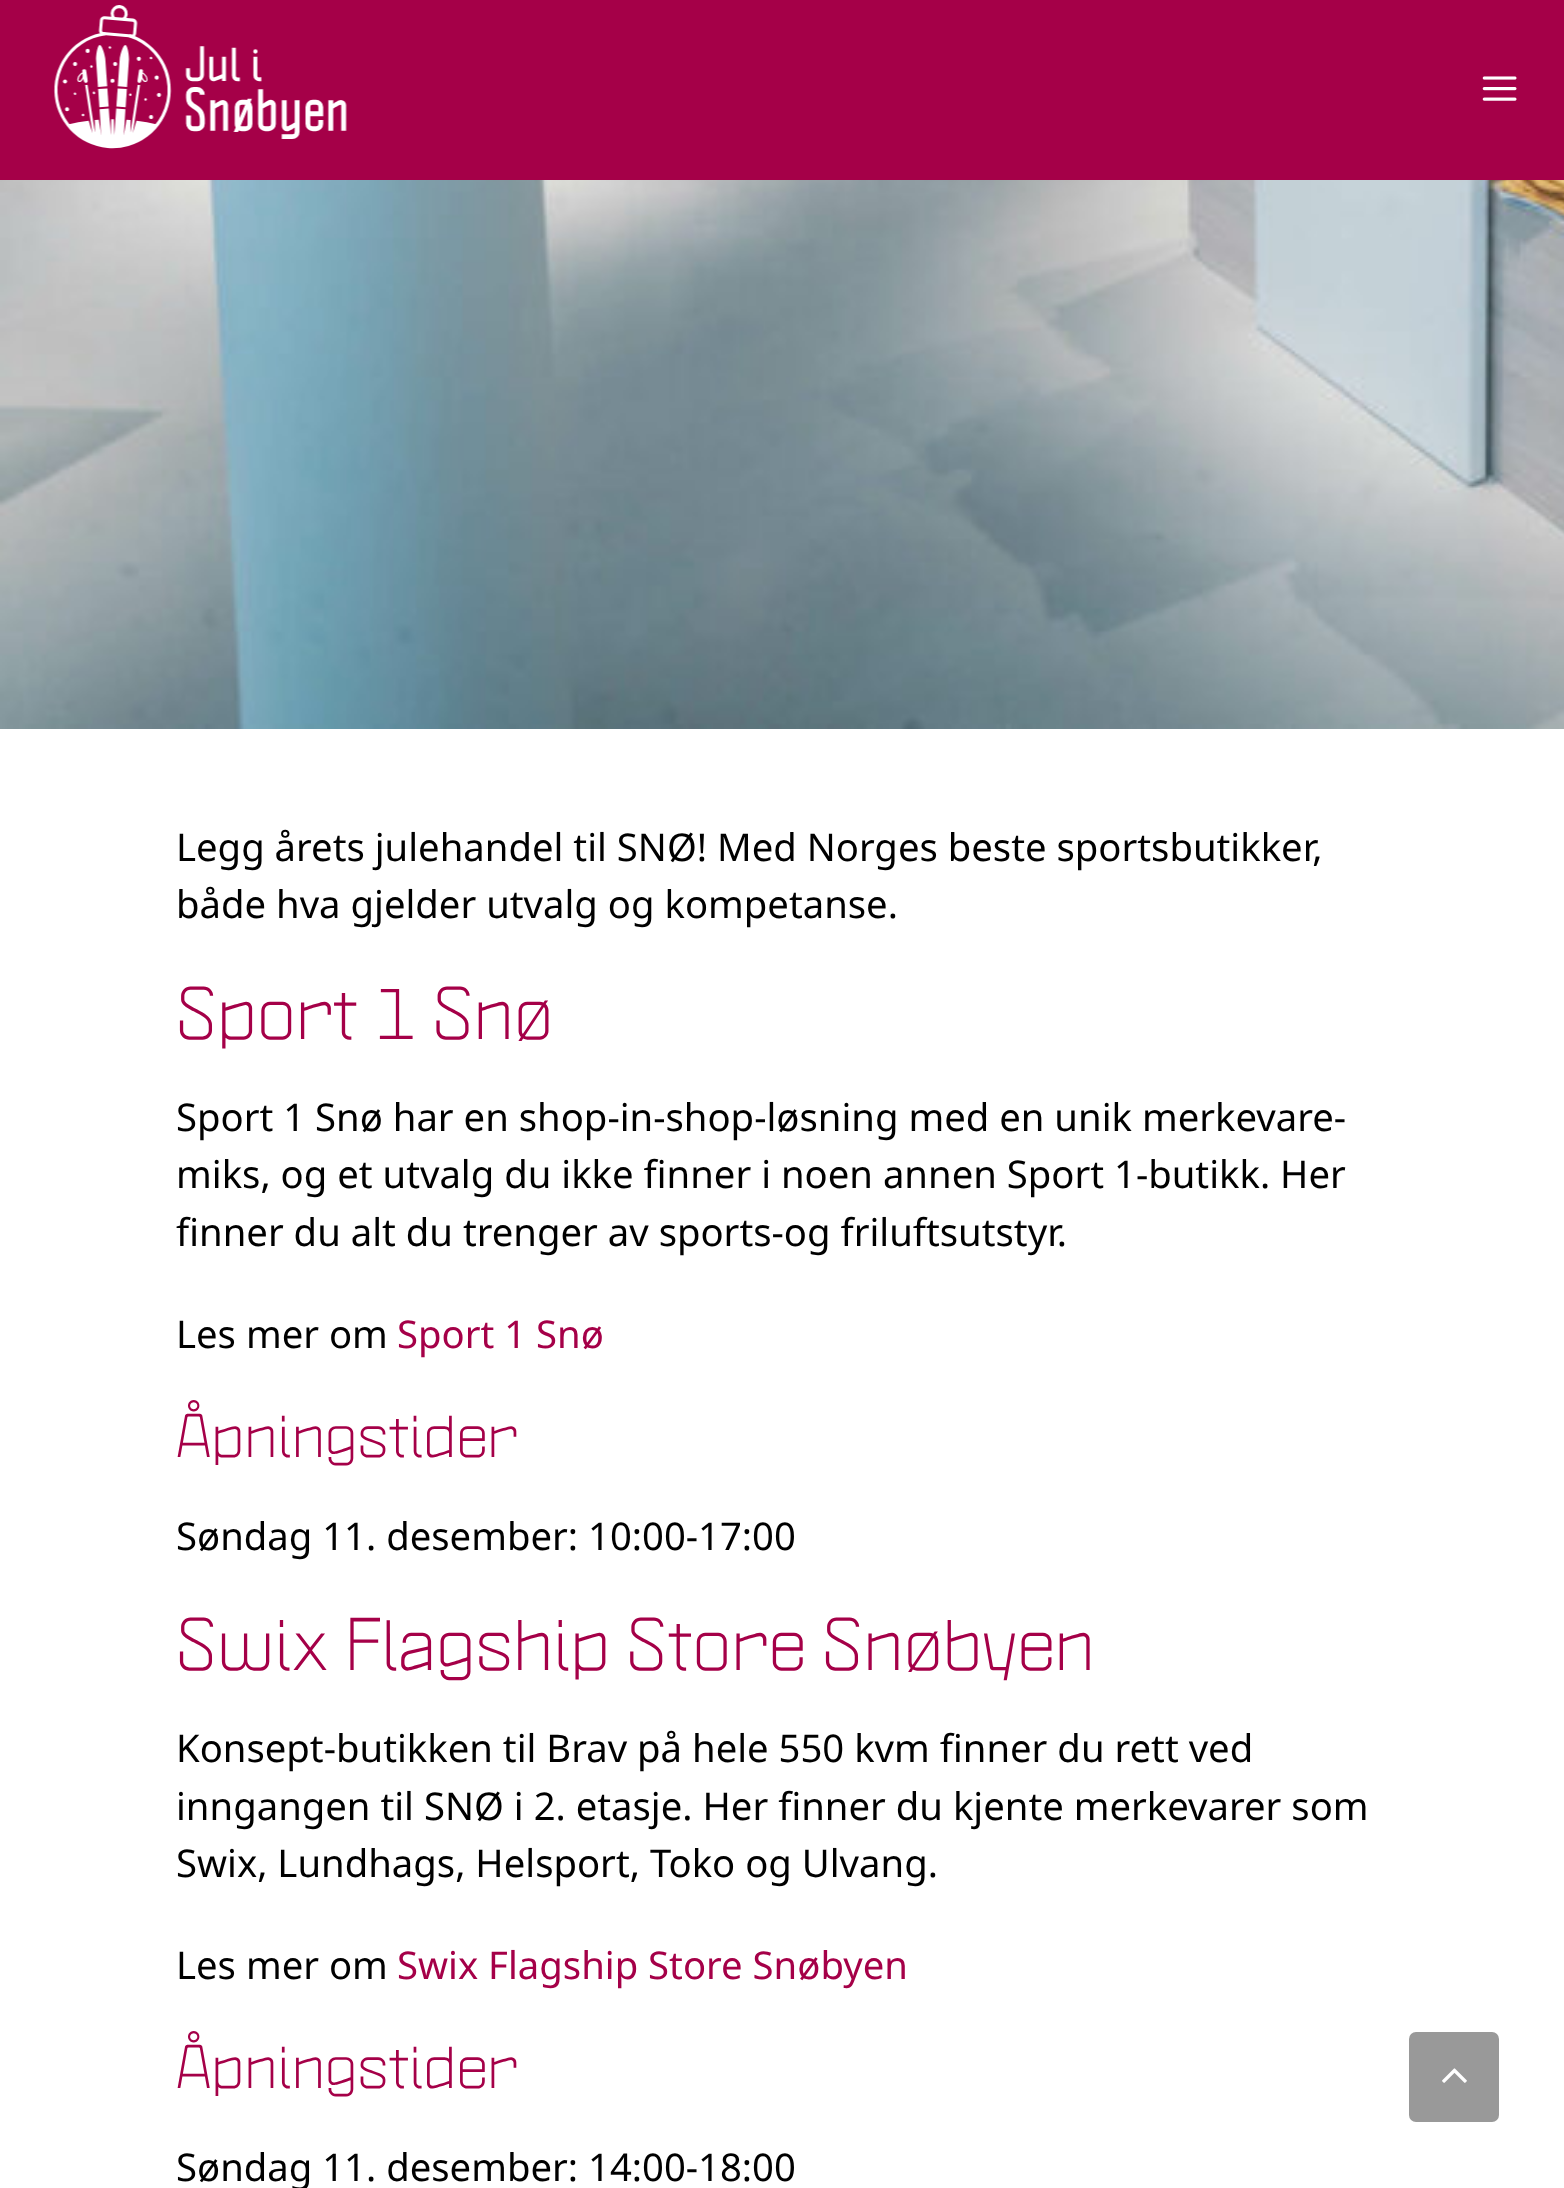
<!DOCTYPE html>
<meta charset="utf-8">
<style>body { margin: 0 } canvas { display: block }</style>
<canvas id="canvas" width="1564" height="2188"></canvas>
<img id="img1" src="images/1.png" hidden>
<img id="img2" src="images/2.png" hidden>
<img id="img3" src="images/3.png" hidden>
<img id="img4" src="images/4.png" hidden>
<script>
window.onload = function () {
    const canvas = document.getElementById('canvas');
    const context = canvas.getContext('2d');
    context.miterLimit = 4;
    context.fontKerning = 'normal';

    context.fillStyle = 'rgb(255, 255, 255)';
    context.fillRect(0, 0, 1564, 2188);
    context.fillStyle = 'rgb(165, 0, 72)';
    context.fillRect(0, 0, 1564, 180);
    context.drawImage(document.getElementById('img1'), 53, 5, 294, 144);
    context.drawImage(document.getElementById('img2'), 1482, 76, 35, 25);
    context.drawImage(document.getElementById('img3'), 0, 180, 1564, 549);
    context.fillStyle = 'rgb(153, 153, 153)';
    context.beginPath();
    context.roundRect(1409, 2032, 90, 90, 7);
    context.fill();
    context.drawImage(document.getElementById('img4'), 1442, 2068, 25, 15);
    context.font = '38.25px Noto Sans';
    context.fillStyle = 'rgb(0, 0, 0)';
    context.fillText('Legg årets julehandel til SNØ! Med Norges beste sportsbutikker,', 176, 861);
    context.fillText('både hva gjelder utvalg og kompetanse.', 176, 918);
    context.font = '65.25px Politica';
    context.fillStyle = 'rgb(165, 0, 72)';
    context.fillText('Sport 1 Snø', 176, 1039);
    context.font = '38.25px Noto Sans';
    context.fillStyle = 'rgb(0, 0, 0)';
    context.fillText('Sport 1 Snø har en shop-in-shop-løsning med en unik merkevare-', 176, 1131);
    context.fillText('miks, og et utvalg du ikke finner i noen annen Sport 1-butikk. Her', 176, 1188);
    context.fillText('finner du alt du trenger av sports-og friluftsutstyr.', 176, 1246);
    context.fillText('Les mer om', 176, 1348);
    context.fillStyle = 'rgb(165, 0, 72)';
    context.fillText('Sport 1 Snø', 397, 1348);
    context.font = '54px Politica';
    context.fillText('Åpningstider', 176, 1457);
    context.font = '38.25px Noto Sans';
    context.fillStyle = 'rgb(0, 0, 0)';
    context.fillText('Søndag 11. desember: 10:00-17:00', 176, 1550);
    context.font = '65.25px Politica';
    context.fillStyle = 'rgb(165, 0, 72)';
    context.fillText('Swix Flagship Store Snøbyen', 176, 1670);
    context.font = '38.25px Noto Sans';
    context.fillStyle = 'rgb(0, 0, 0)';
    context.fillText('Konsept-butikken til Brav på hele 550 kvm finner du rett ved', 176, 1762);
    context.fillText('inngangen til SNØ i 2. etasje. Her finner du kjente merkevarer som', 176, 1820);
    context.fillText('Swix, Lundhags, Helsport, Toko og Ulvang.', 176, 1877);
    context.fillText('Les mer om', 176, 1979);
    context.fillStyle = 'rgb(165, 0, 72)';
    context.fillText('Swix Flagship Store Snøbyen', 397, 1979);
    context.font = '54px Politica';
    context.fillText('Åpningstider', 176, 2088);
    context.font = '38.25px Noto Sans';
    context.fillStyle = 'rgb(0, 0, 0)';
    context.fillText('Søndag 11. desember: 14:00-18:00', 176, 2181);
};
</script>
